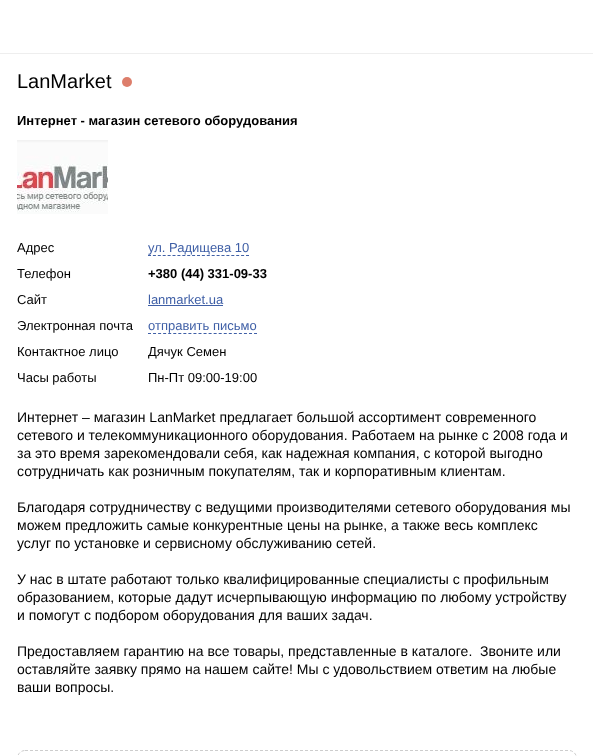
<!DOCTYPE html>
<meta charset="utf-8">
<style>body { margin: 0 } canvas { display: block }</style>
<canvas id="canvas" width="593" height="756"></canvas>
<img id="img1" src="images/1.png" hidden>
<img id="img2" src="images/2.png" hidden>
<script>
window.onload = function () {
    const canvas = document.getElementById('canvas');
    const context = canvas.getContext('2d');
    context.miterLimit = 4;
    context.fontKerning = 'normal';

    context.fillStyle = 'rgb(255, 255, 255)';
    context.fillRect(0, 0, 593, 756);
    context.fillStyle = 'rgb(238, 238, 238)';
    context.fillRect(0, 53, 593, 1);
    context.fillStyle = 'rgb(221, 126, 107)';
    context.beginPath();
    context.arc(127, 82, 5, 0, 2 * Math.PI);
    context.fill();
    context.drawImage(document.getElementById('img1'), 17, 140, 91, 74);
    context.drawImage(document.getElementById('img2'), 17, 180, 7, 5);
    context.beginPath();
    context.moveTo(148, 255.5);
    context.lineTo(249, 255.5);
    context.strokeStyle = 'rgb(63, 95, 166)';
    context.setLineDash([3, 1.9]);
    context.stroke();
    context.fillStyle = 'rgb(63, 95, 166)';
    context.fillRect(148, 305, 75, 1);
    context.beginPath();
    context.moveTo(148, 333.5);
    context.lineTo(257, 333.5);
    context.setLineDash([3, 2.05]);
    context.stroke();
    context.beginPath();
    context.moveTo(25, 750.5);
    context.lineTo(569, 750.5);
    context.bezierCurveTo(573, 750.5, 576.5, 754, 576.5, 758);
    context.lineTo(576.5, 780);
    context.bezierCurveTo(576.5, 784, 573, 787.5, 569, 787.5);
    context.lineTo(25, 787.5);
    context.bezierCurveTo(21, 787.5, 17.5, 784, 17.5, 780);
    context.lineTo(17.5, 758);
    context.bezierCurveTo(17.5, 754, 21, 750.5, 25, 750.5);
    context.closePath();
    context.strokeStyle = 'rgb(205, 205, 205)';
    context.setLineDash([3, 2]);
    context.stroke();
    context.font = '20px Liberation Sans';
    context.fillStyle = 'rgb(0, 0, 0)';
    context.fillText('LanMarket', 17, 88);
    context.font = 'bold 13px Liberation Sans';
    context.fillText('Интернет - магазин сетевого оборудования', 17, 125);
    context.font = '13px Liberation Sans';
    context.fillText('Адрес', 17, 252);
    context.fillStyle = 'rgb(63, 95, 166)';
    context.fillText('ул. Радищева 10', 148, 252);
    context.fillStyle = 'rgb(0, 0, 0)';
    context.fillText('Телефон', 17, 278);
    context.font = 'bold 13px Liberation Sans';
    context.fillText('+380 (44) 331-09-33', 148, 278);
    context.font = '13px Liberation Sans';
    context.fillText('Сайт', 17, 304);
    context.fillStyle = 'rgb(63, 95, 166)';
    context.fillText('lanmarket.ua', 148, 304);
    context.fillStyle = 'rgb(0, 0, 0)';
    context.fillText('Электронная почта', 17, 330);
    context.fillStyle = 'rgb(63, 95, 166)';
    context.fillText('отправить письмо', 148, 330);
    context.fillStyle = 'rgb(0, 0, 0)';
    context.fillText('Контактное лицо', 17, 356);
    context.fillText('Дячук Семен', 148, 356);
    context.fillText('Часы работы', 17, 382);
    context.fillText('Пн-Пт 09:00-19:00', 148, 382);
    context.font = '14px Liberation Sans';
    context.fillText('Интернет – магазин LanMarket предлагает большой ассортимент современного', 17, 422);
    context.fillText('сетевого и телекоммуникационного оборудования. Работаем на рынке с 2008 года и', 17, 440);
    context.fillText('за это время зарекомендовали себя, как надежная компания, с которой выгодно', 17, 458);
    context.fillText('сотрудничать как розничным покупателям, так и корпоративным клиентам.', 17, 476);
    context.fillText('Благодаря сотрудничеству с ведущими производителями сетевого оборудования мы', 17, 512);
    context.fillText('можем предложить самые конкурентные цены на рынке, а также весь комплекс', 17, 530);
    context.fillText('услуг по установке и сервисному обслуживанию сетей.', 17, 548);
    context.fillText('У нас в штате работают только квалифицированные специалисты с профильным', 17, 584);
    context.fillText('образованием, которые дадут исчерпывающую информацию по любому устройству', 17, 602);
    context.fillText('и помогут с подбором оборудования для ваших задач.', 17, 620);
    context.fillText('Предоставляем гарантию на все товары, представленные в каталоге.  Звоните или', 17, 656);
    context.fillText('оставляйте заявку прямо на нашем сайте! Мы с удовольствием ответим на любые', 17, 674);
    context.fillText('ваши вопросы.', 17, 692);
};
</script>
